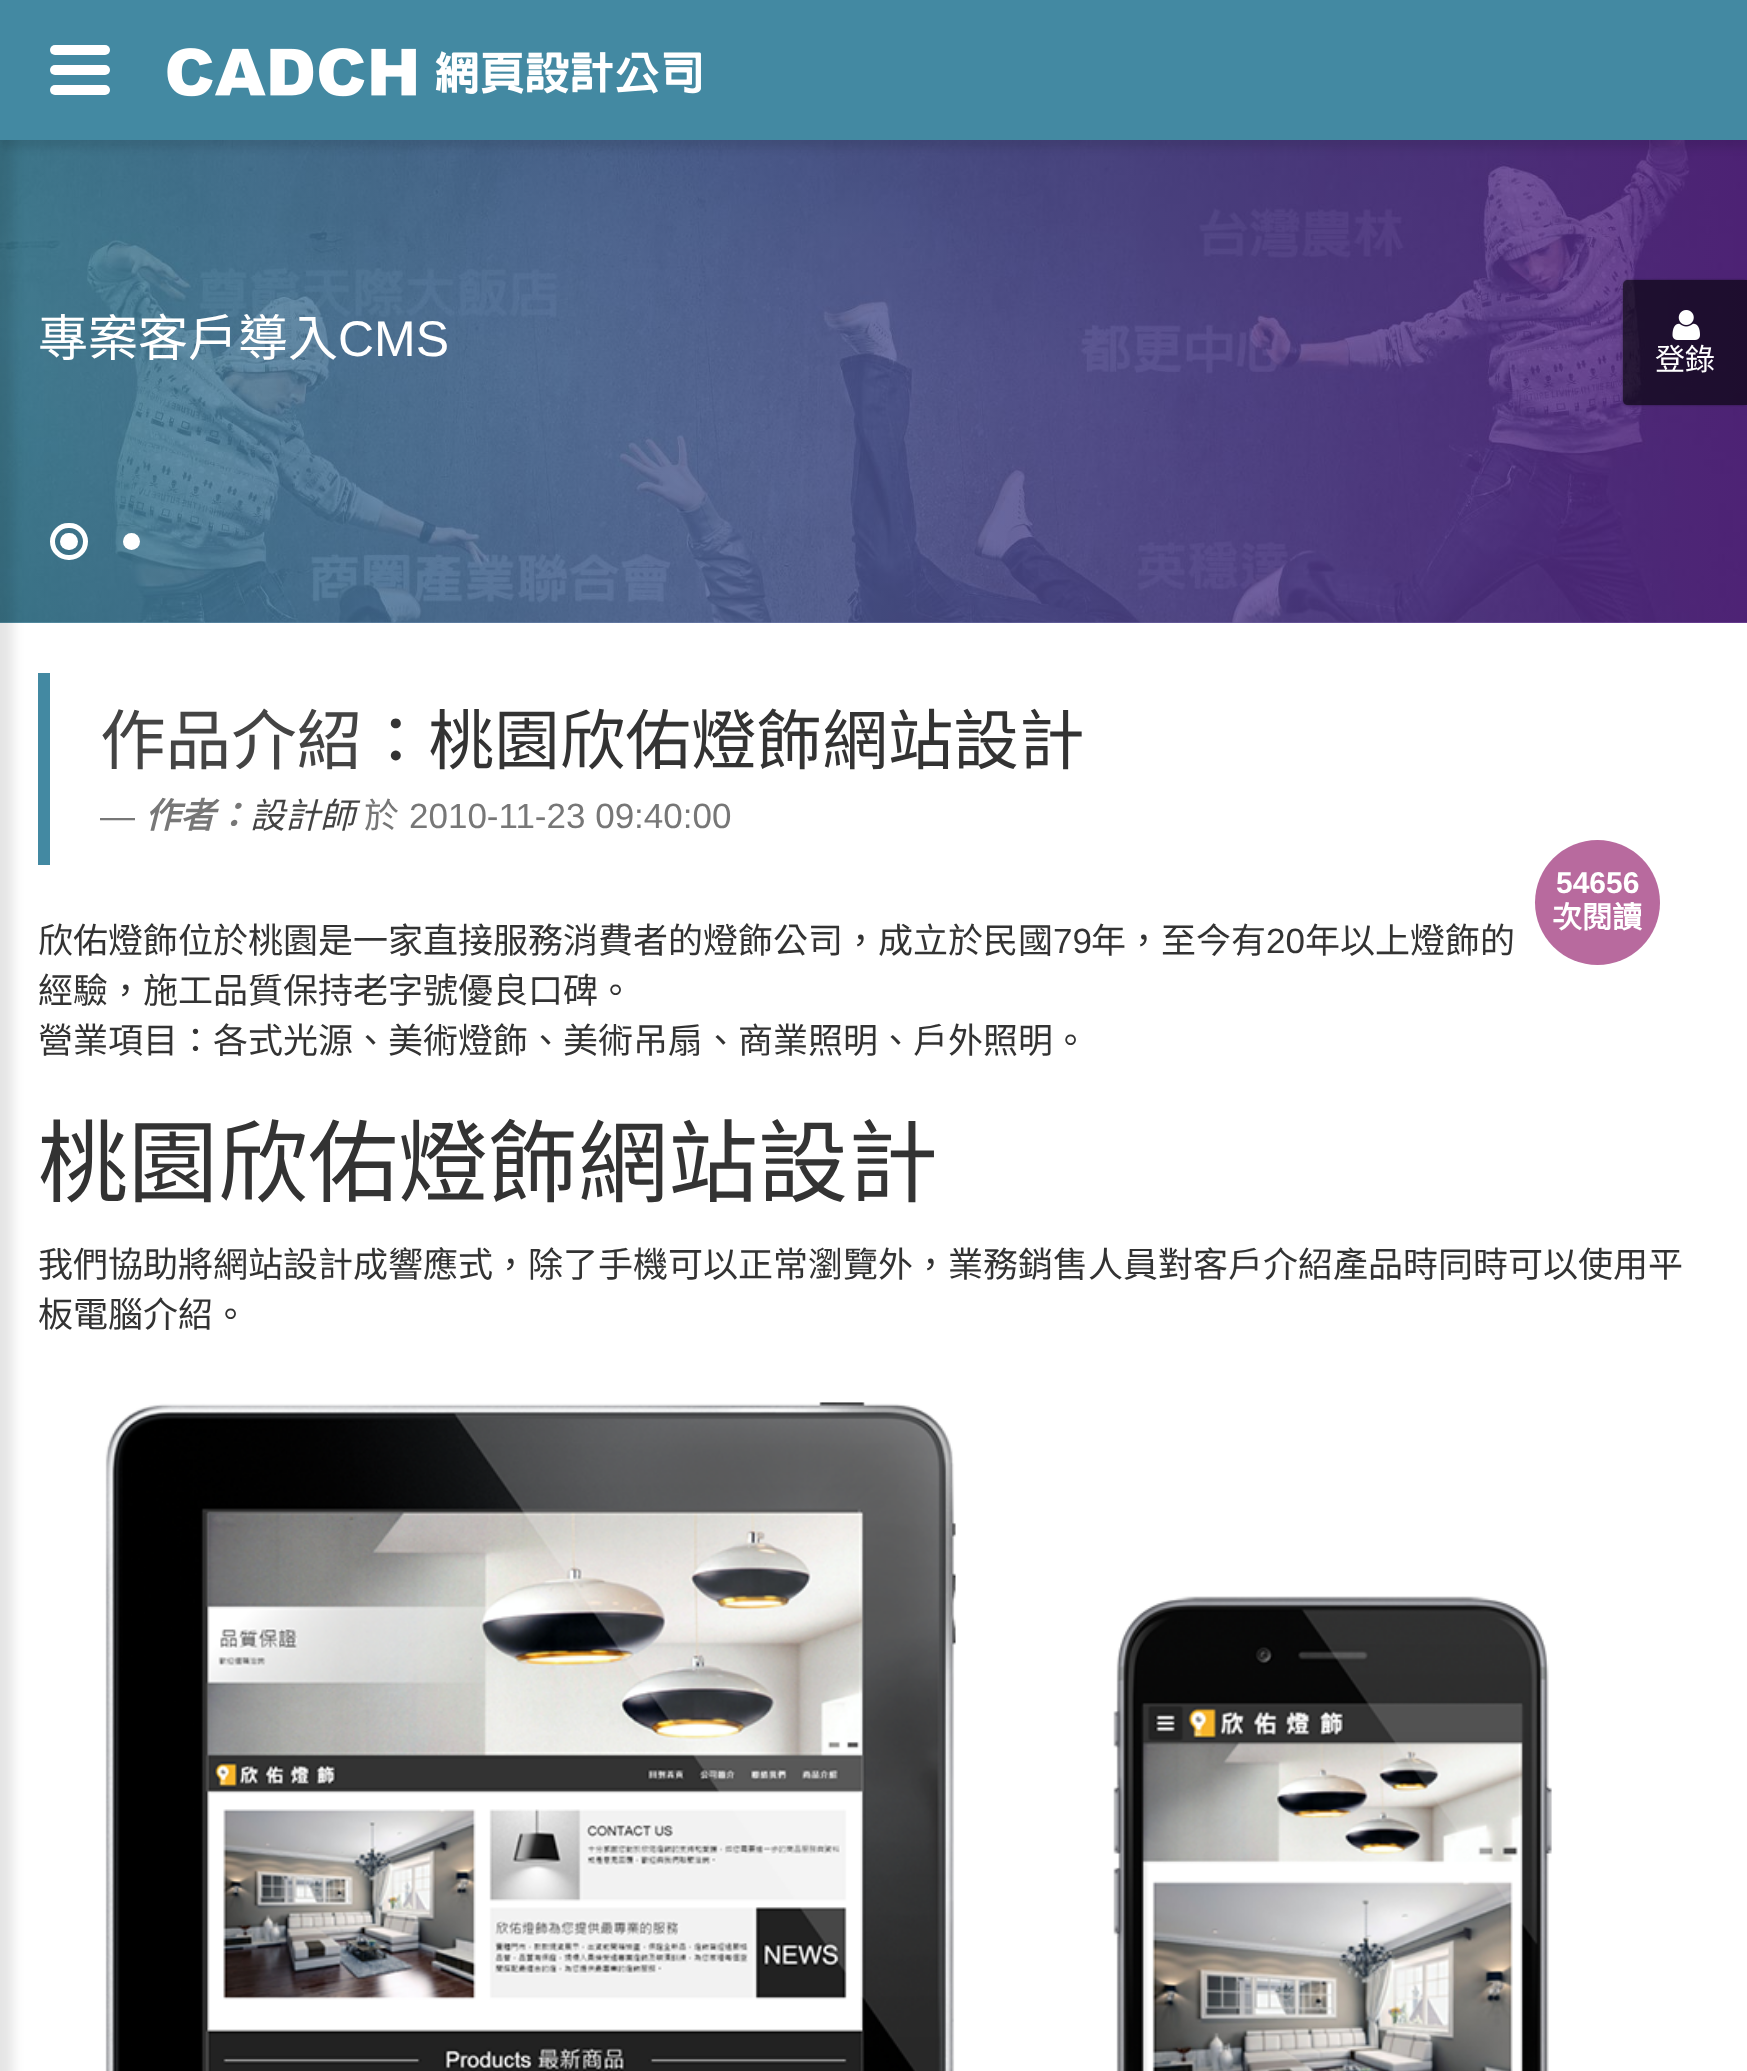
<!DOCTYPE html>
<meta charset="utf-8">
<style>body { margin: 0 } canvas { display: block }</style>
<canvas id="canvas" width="1747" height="2071"></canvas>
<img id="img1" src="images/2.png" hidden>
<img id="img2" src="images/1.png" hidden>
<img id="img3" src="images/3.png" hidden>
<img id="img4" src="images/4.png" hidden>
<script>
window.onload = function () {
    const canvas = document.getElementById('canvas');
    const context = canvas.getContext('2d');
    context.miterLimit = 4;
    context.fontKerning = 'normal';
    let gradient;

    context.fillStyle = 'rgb(255, 255, 255)';
    context.fillRect(0, 0, 1747, 2071);
    context.drawImage(document.getElementById('img1'), 0, 140, 1747, 483);
    gradient = context.createLinearGradient(0, 311, 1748, 311);
    gradient.addColorStop(0, 'rgba(67, 137, 162, 0.8)');
    gradient.addColorStop(1, 'rgba(92, 38, 141, 0.8)');
    context.fillStyle = gradient;
    context.fillRect(0, 140, 1747, 483);
    context.fillStyle = 'rgba(0, 0, 0, 0.1)';
    context.filter = 'blur(6px)';
    context.beginPath();
    context.rect(-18, -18, 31, 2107);
    context.fill();
    context.filter = 'none';
    context.filter = 'blur(4px)';
    context.beginPath();
    context.rect(0, 8, 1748, 140);
    context.fill();
    context.filter = 'none';
    context.fillStyle = 'rgb(67, 137, 162)';
    context.fillRect(0, 0, 1747, 140);
    context.fillStyle = 'rgb(255, 255, 255)';
    context.beginPath();
    context.roundRect(50, 65, 60, 10, 5);
    context.fill();
    context.beginPath();
    context.roundRect(50, 45, 60, 10, 5);
    context.fill();
    context.beginPath();
    context.roundRect(50, 85, 60, 10, 5);
    context.fill();
    context.drawImage(document.getElementById('img2'), 167, 48, 534, 49);
    context.beginPath();
    context.roundRect(52.5, 525.5, 33, 32, 16);
    context.strokeStyle = 'rgb(255, 255, 255)';
    context.lineWidth = 5;
    context.stroke();
    context.beginPath();
    context.roundRect(60, 533, 18, 17, 8.5);
    context.fill();
    context.beginPath();
    context.arc(131.5, 541.5, 8.5, 0, 2 * Math.PI);
    context.fill();
    context.save();
    context.beginPath();
    context.moveTo(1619, 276);
    context.lineTo(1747, 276);
    context.lineTo(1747, 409);
    context.lineTo(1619, 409);
    context.closePath();
    context.moveTo(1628, 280);
    context.lineTo(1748, 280);
    context.lineTo(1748, 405);
    context.lineTo(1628, 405);
    context.bezierCurveTo(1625, 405, 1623, 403, 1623, 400);
    context.lineTo(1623, 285);
    context.bezierCurveTo(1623, 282, 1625, 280, 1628, 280);
    context.closePath();
    context.clip('evenodd');
    context.fillStyle = 'rgba(0, 0, 0, 0.4)';
    context.filter = 'blur(1px)';
    context.beginPath();
    context.roundRect(1623, 280, 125, 125, 5);
    context.fill();
    context.filter = 'none';
    context.restore();
    context.fillStyle = 'rgba(0, 0, 0, 0.6)';
    context.beginPath();
    context.moveTo(1628, 280);
    context.lineTo(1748, 280);
    context.lineTo(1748, 405);
    context.lineTo(1628, 405);
    context.bezierCurveTo(1625, 405, 1623, 403, 1623, 400);
    context.lineTo(1623, 285);
    context.bezierCurveTo(1623, 282, 1625, 280, 1628, 280);
    context.closePath();
    context.fill();
    context.drawImage(document.getElementById('img3'), 1672, 310, 28, 30);
    context.fillStyle = 'rgb(67, 137, 162)';
    context.fillRect(38, 673, 12, 192);
    context.fillStyle = 'rgb(184, 106, 158)';
    context.beginPath();
    context.arc(1597.5, 902.5, 62.5, 0, 2 * Math.PI);
    context.fill();
    context.drawImage(document.getElementById('img4'), 105, 1402, 1447, 669);
    context.font = '50px Noto Sans CJK TC';
    context.fillStyle = 'rgb(255, 255, 255)';
    context.fillText('專案客戶導入', 38, 356);
    context.font = '50px Liberation Sans';
    context.fillText('CMS', 338, 356);
    context.font = '30px Noto Sans CJK TC';
    context.fillText('登錄', 1655, 370);
    context.font = '65.6px Noto Sans CJK TC';
    context.fillStyle = 'rgb(68, 68, 68)';
    context.fillText('作品介紹', 100, 764);
    context.fillStyle = 'rgb(51, 51, 51)';
    context.fillText('：桃園欣佑燈飾網站設計', 363, 764);
    context.font = '35px Liberation Sans';
    context.fillStyle = 'rgb(119, 119, 119)';
    context.fillText('—', 100, 828);
    context.font = 'italic bold 35px Noto Sans CJK TC';
    context.fillText('作者：', 145, 828);
    context.font = 'italic 35px Noto Sans CJK TC';
    context.fillStyle = 'rgb(68, 68, 68)';
    context.fillText('設計師', 250, 828);
    context.font = '35px Noto Sans CJK TC';
    context.fillStyle = 'rgb(119, 119, 119)';
    context.fillText('於', 364, 828);
    context.font = '35px Liberation Sans';
    context.fillText('2010-11-23 09:40:00', 409, 828);
    context.font = 'bold 30px Liberation Sans';
    context.fillStyle = 'rgb(255, 255, 255)';
    context.fillText('54656', 1556, 893);
    context.font = 'bold 30px Noto Sans CJK TC';
    context.fillText('次閱讀', 1552, 928);
    context.font = '35px Noto Sans CJK TC';
    context.fillStyle = 'rgb(51, 51, 51)';
    context.fillText('欣佑燈飾位於桃園是一家直接服務消費者的燈飾公司，成立於民國', 38, 953);
    context.font = '35px Liberation Sans';
    context.fillText('79', 1053, 953);
    context.font = '35px Noto Sans CJK TC';
    context.fillText('年，至今有', 1091, 953);
    context.font = '35px Liberation Sans';
    context.fillText('20', 1266, 953);
    context.font = '35px Noto Sans CJK TC';
    context.fillText('年以上燈飾的', 1305, 953);
    context.fillText('經驗，施工品質保持老字號優良口碑。', 38, 1003);
    context.fillText('營業項目：各式光源、美術燈飾、美術吊扇、商業照明、戶外照明。', 38, 1053);
    context.font = '90px Noto Sans CJK TC';
    context.fillText('桃園欣佑燈飾網站設計', 38, 1195);
    context.font = '35px Noto Sans CJK TC';
    context.fillText('我們協助將網站設計成響應式，除了手機可以正常瀏覽外，業務銷售人員對客戶介紹產品時同時可以使用平', 38, 1277);
    context.fillText('板電腦介紹。', 38, 1327);
};
</script>
